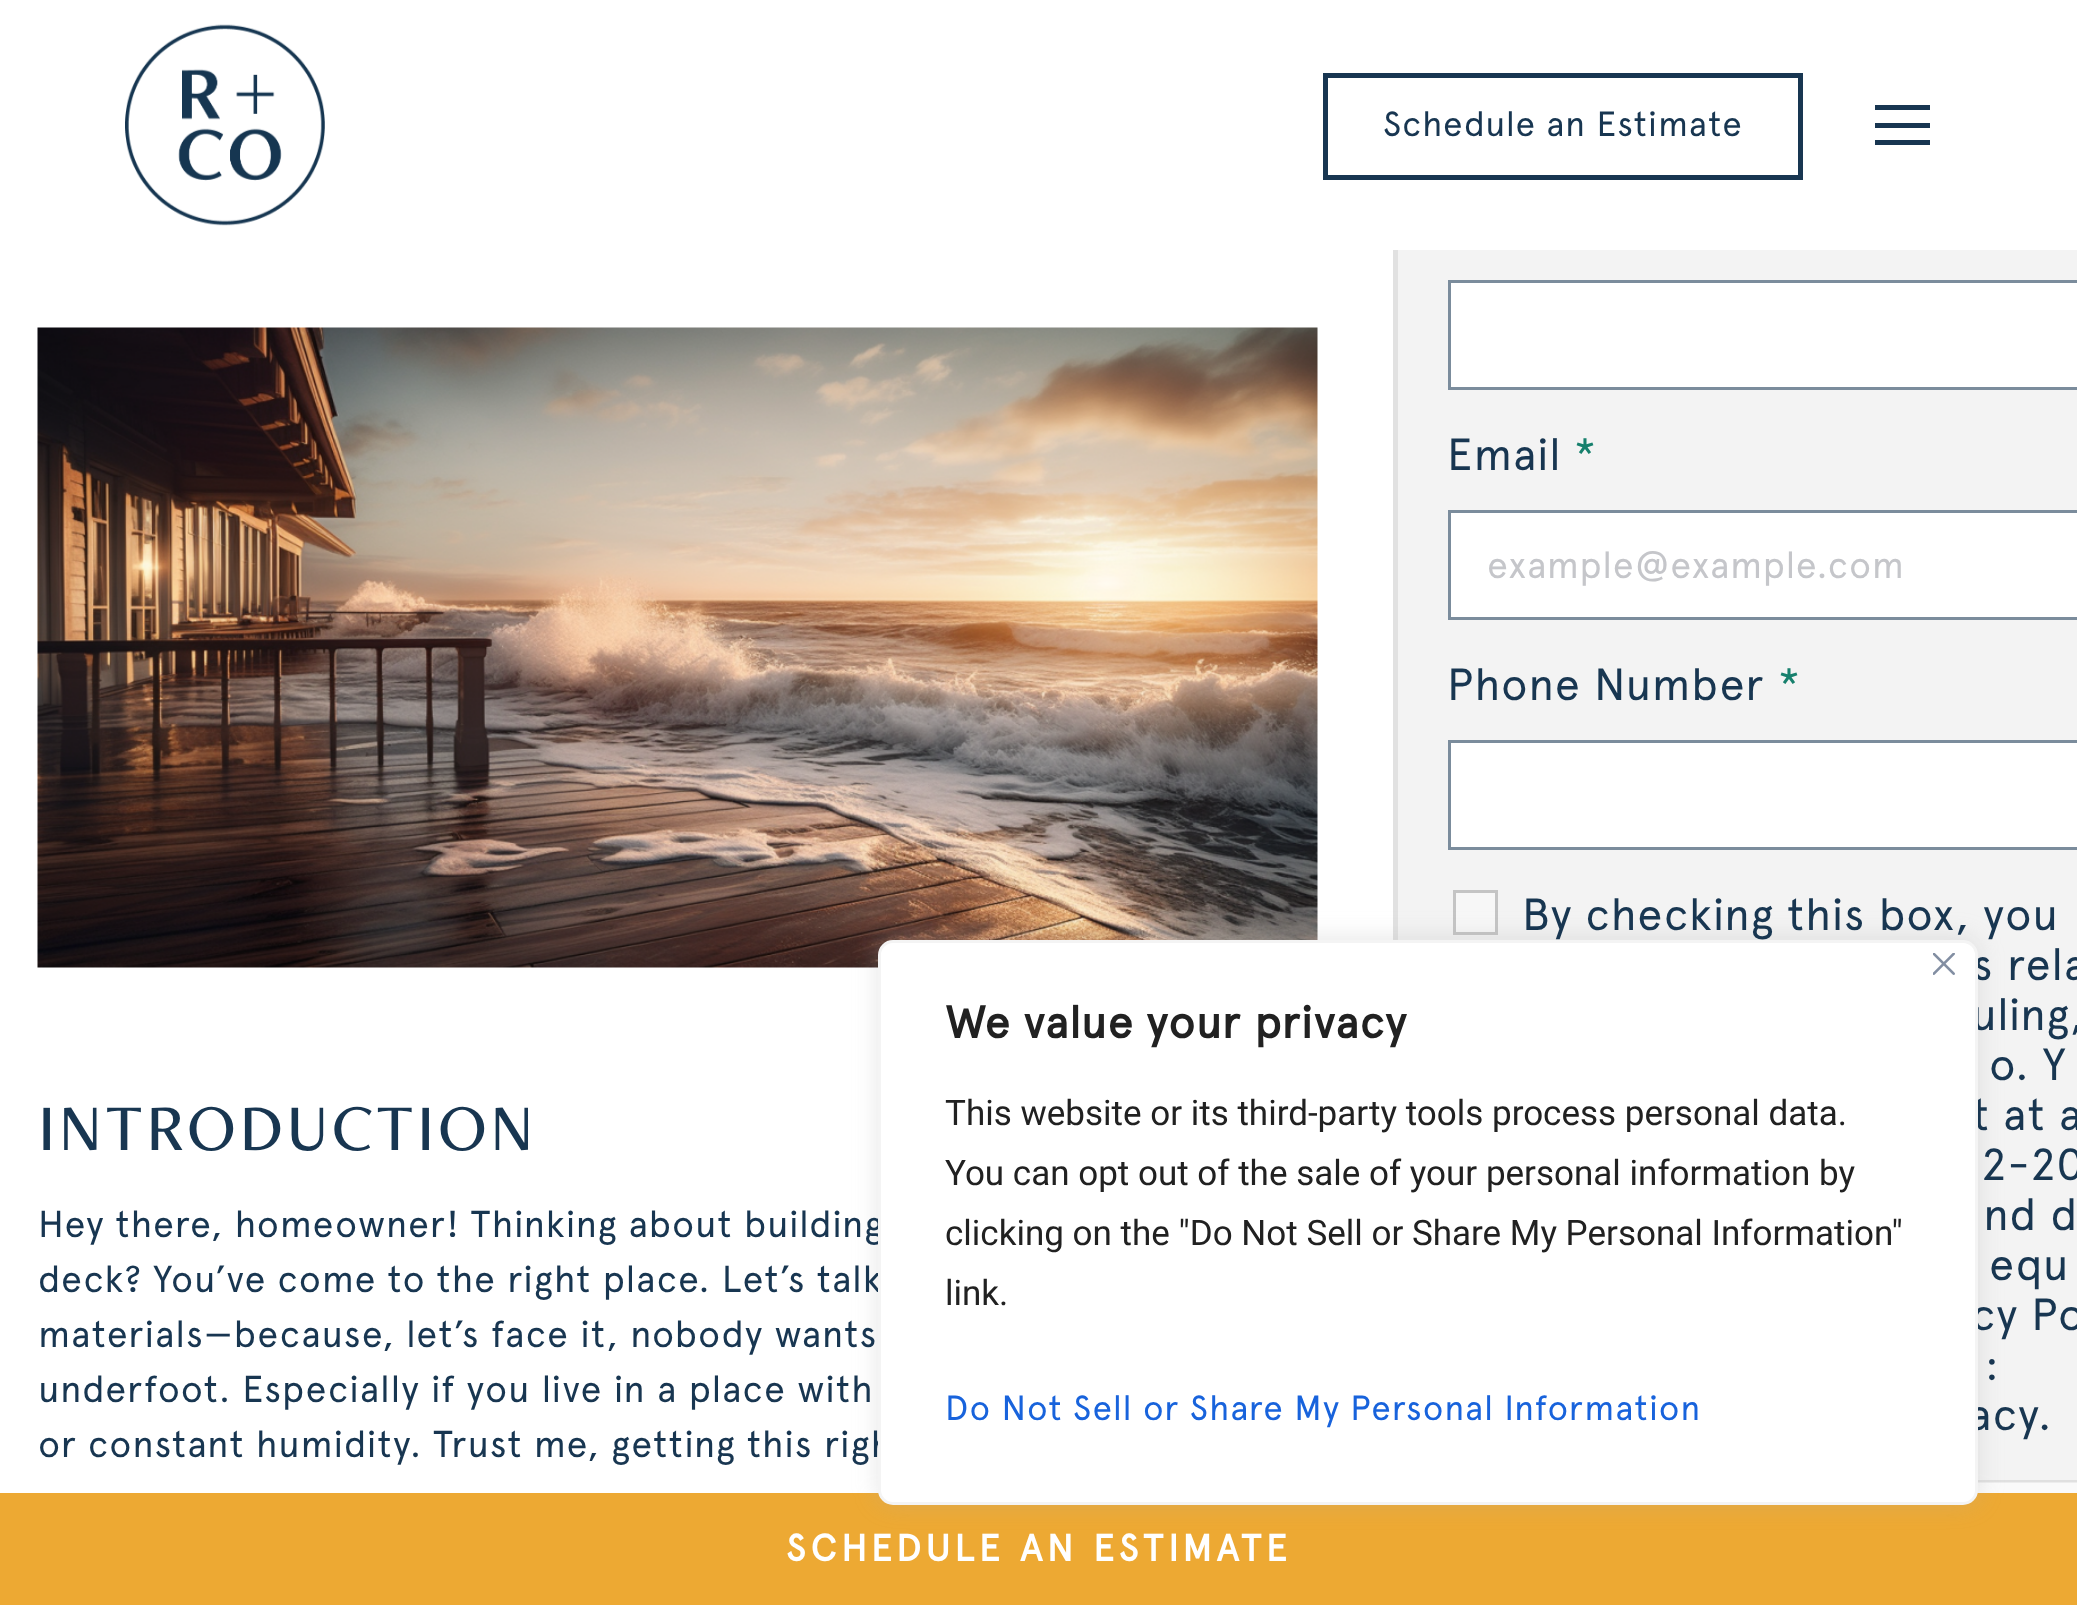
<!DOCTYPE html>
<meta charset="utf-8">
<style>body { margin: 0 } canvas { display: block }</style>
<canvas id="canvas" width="2077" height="1605"></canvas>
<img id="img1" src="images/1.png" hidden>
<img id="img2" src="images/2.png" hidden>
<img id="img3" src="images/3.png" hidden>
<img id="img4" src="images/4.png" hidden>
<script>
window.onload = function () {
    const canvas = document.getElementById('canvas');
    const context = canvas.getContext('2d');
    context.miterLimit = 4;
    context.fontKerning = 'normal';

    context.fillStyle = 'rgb(255, 255, 255)';
    context.fillRect(0, 0, 2077, 1605);
    context.fillStyle = 'rgb(243, 243, 243)';
    context.fillRect(1398, 250, 679, 1230);
    context.strokeStyle = 'rgb(225, 225, 225)';
    context.lineWidth = 5;
    context.strokeRect(1395.5, 7.5, 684, 1495);
    context.fillStyle = 'rgb(255, 255, 255)';
    context.fillRect(1393, 5, 684, 245);
    context.drawImage(document.getElementById('img1'), 125, 24, 200, 202);
    context.strokeStyle = 'rgb(24, 54, 81)';
    context.strokeRect(1325.5, 75.5, 475, 102);
    context.fillStyle = 'rgb(24, 54, 81)';
    context.fillRect(1875, 105, 55, 5);
    context.fillRect(1875, 123, 55, 5);
    context.fillRect(1875, 140, 55, 5);
    context.drawImage(document.getElementById('img2'), 37, 327, 1281, 641);
    context.fillStyle = 'rgb(255, 255, 255)';
    context.beginPath();
    context.rect(1449.5, 281.5, 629, 107);
    context.fill();
    context.strokeStyle = 'rgb(123, 140, 156)';
    context.lineWidth = 3;
    context.stroke();
    context.beginPath();
    context.rect(1449.5, 511.5, 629, 107);
    context.fill();
    context.stroke();
    context.beginPath();
    context.rect(1449.5, 741.5, 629, 107);
    context.fill();
    context.stroke();
    context.fillStyle = 'rgb(247, 247, 247)';
    context.beginPath();
    context.rect(1454.5, 891.5, 42, 42);
    context.fill();
    context.strokeStyle = 'rgb(196, 196, 196)';
    context.stroke();
    context.strokeStyle = 'rgb(224, 224, 224)';
    context.strokeRect(1449.5, 1481.5, 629, 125);
    context.drawImage(document.getElementById('img3'), 1977, 1482, 100, 11);
    context.fillStyle = 'rgb(237, 169, 51)';
    context.fillRect(0, 1493, 2077, 112);
    context.fillStyle = 'rgba(172, 171, 171, 0.3)';
    context.filter = 'blur(12.5px)';
    context.beginPath();
    context.roundRect(878, 938, 1100, 565, 15);
    context.fill();
    context.filter = 'none';
    context.letterSpacing = '1px';
    context.font = '35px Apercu';
    context.fillStyle = 'rgb(24, 54, 81)';
    context.fillText('Schedule an Estimate', 1383, 136);
    context.letterSpacing = '3.4px';
    context.font = '500 67.5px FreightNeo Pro';
    context.fillText('INTRODUCTION', 38, 1150);
    context.letterSpacing = '1px';
    context.font = '37.5px Apercu';
    context.fillText('Hey there, homeowner! Thinking about building', 38, 1237);
    context.fillText('deck? You’ve come to the right place. Let’s talk', 38, 1292);
    context.fillText('materials—because, let’s face it, nobody wants', 38, 1347);
    context.fillText('underfoot. Especially if you live in a place with', 38, 1402);
    context.fillText('or constant humidity. Trust me, getting this righ', 38, 1457);
    context.font = '45px Apercu';
    context.fillText('Email', 1447, 470);
    context.fillStyle = 'rgb(23, 128, 109)';
    context.fillText('*', 1574, 470);
    context.font = '37.5px Apercu';
    context.fillStyle = 'rgb(197, 198, 202)';
    context.fillText('example@example.com', 1487, 578);
    context.font = '45px Apercu';
    context.fillStyle = 'rgb(24, 54, 81)';
    context.fillText('Phone Number', 1447, 700);
    context.fillStyle = 'rgb(23, 128, 109)';
    context.fillText('*', 1778, 700);
    context.fillStyle = 'rgb(24, 54, 81)';
    context.fillText('By checking this box, you', 1522, 930);
    context.fillText('s rela', 1972, 980);
    context.fillText('uling,', 1971, 1030);
    context.fillText('o. Y', 1989, 1080);
    context.fillText('t at a', 1972, 1130);
    context.fillText('2-20', 1981, 1180);
    context.fillText('nd d', 1983, 1230);
    context.fillText('equ', 1989, 1280);
    context.fillText('cy Po', 1971, 1330);
    context.fillText(':', 1985, 1380);
    context.fillText('acy.', 1968, 1430);
    context.fillStyle = 'rgb(255, 255, 255)';
    context.beginPath();
    context.roundRect(879.5, 941.5, 1097, 562, 13.5);
    context.fill();
    context.strokeStyle = 'rgb(244, 244, 244)';
    context.stroke();
    context.drawImage(document.getElementById('img4'), 1933, 953, 22, 22);
    context.font = 'bold 45px Apercu';
    context.fillStyle = 'rgb(33, 33, 33)';
    context.fillText('We value your privacy', 945, 1038);
    context.letterSpacing = '0px';
    context.font = '35px Roboto';
    context.fillText('This website or its third-party tools process personal data.', 945, 1125);
    context.fillText('You can opt out of the sale of your personal information by', 945, 1185);
    context.fillText('clicking on the "Do Not Sell or Share My Personal Information"', 945, 1245);
    context.fillText('link.', 945, 1305);
    context.letterSpacing = '1px';
    context.font = '35px Apercu';
    context.fillStyle = 'rgb(24, 99, 220)';
    context.fillText('Do Not Sell or Share My Personal Information', 945, 1420);
    context.letterSpacing = '5px';
    context.font = 'bold 37.5px Apercu';
    context.fillStyle = 'rgb(255, 255, 255)';
    context.fillText('SCHEDULE AN ESTIMATE', 786, 1561);
};
</script>
